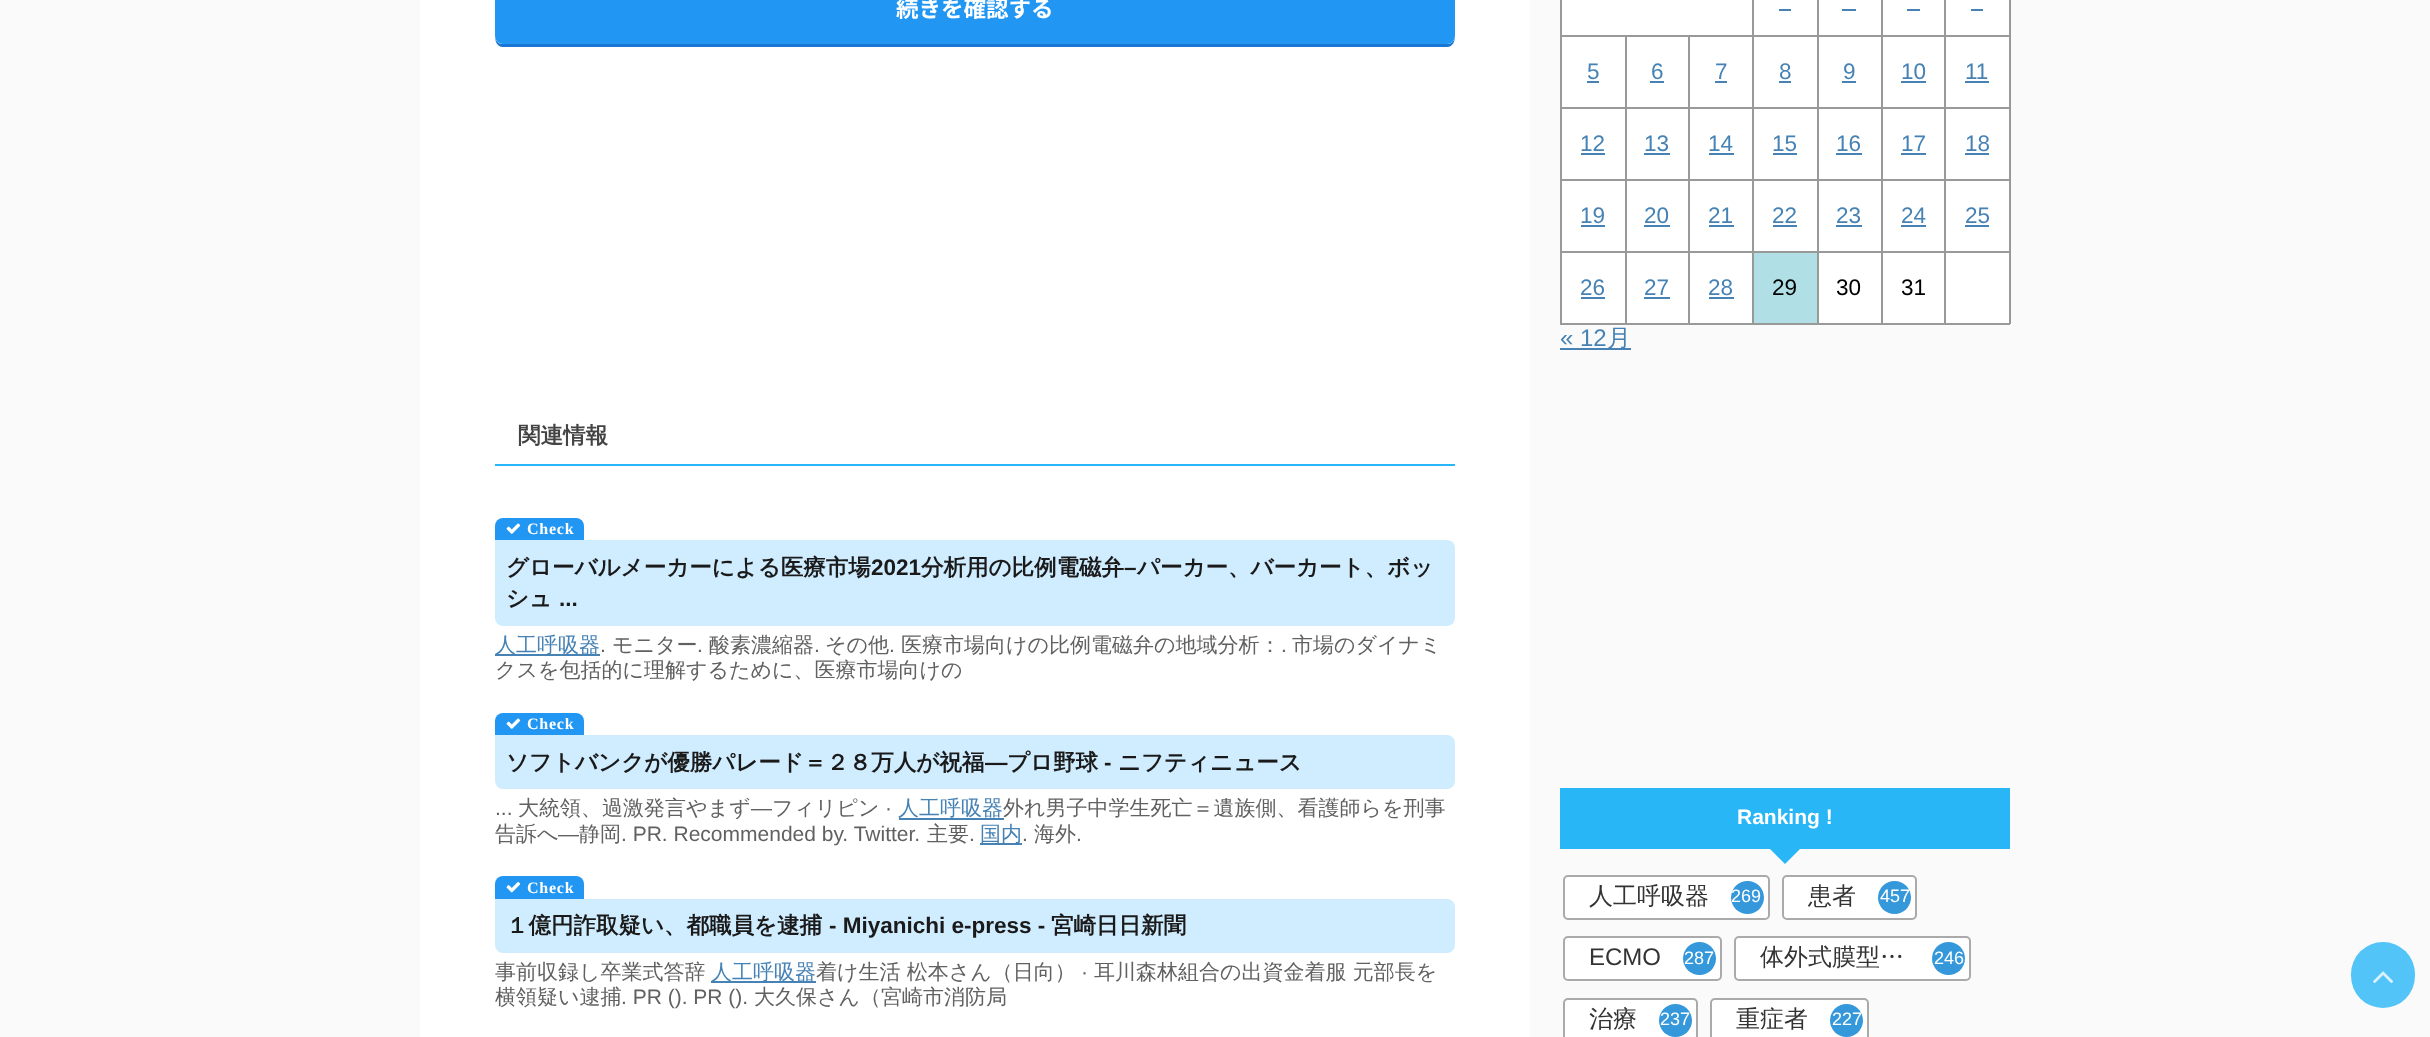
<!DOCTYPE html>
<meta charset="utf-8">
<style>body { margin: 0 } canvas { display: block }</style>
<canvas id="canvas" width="2430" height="1037"></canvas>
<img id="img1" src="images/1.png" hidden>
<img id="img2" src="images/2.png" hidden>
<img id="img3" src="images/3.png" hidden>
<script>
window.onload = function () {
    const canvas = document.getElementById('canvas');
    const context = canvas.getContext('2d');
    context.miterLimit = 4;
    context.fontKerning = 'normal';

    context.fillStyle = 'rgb(250, 250, 250)';
    context.fillRect(0, 0, 2430, 1037);
    context.fillStyle = 'rgb(255, 255, 255)';
    context.fillRect(420, 0, 1110, 1037);
    context.fillStyle = 'rgb(25, 118, 210)';
    context.beginPath();
    context.moveTo(495, 36);
    context.bezierCurveTo(495, 41, 497, 47, 503, 47);
    context.lineTo(1447, 47);
    context.bezierCurveTo(1453, 47, 1455, 41, 1455, 36);
    context.bezierCurveTo(1455, 40, 1452, 44, 1448, 44);
    context.lineTo(502, 44);
    context.bezierCurveTo(498, 44, 495, 40, 495, 36);
    context.closePath();
    context.fill();
    context.fillStyle = 'rgb(33, 150, 243)';
    context.beginPath();
    context.roundRect(495, -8, 960, 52, 8);
    context.fill();
    context.fillStyle = 'rgb(41, 182, 246)';
    context.fillRect(495, 464, 960, 2);
    context.fillStyle = 'rgb(208, 236, 255)';
    context.beginPath();
    context.roundRect(495, 540, 960, 86, [0, 8, 8, 8]);
    context.fill();
    context.fillStyle = 'rgb(33, 150, 243)';
    context.beginPath();
    context.roundRect(495, 518, 89, 22, [8, 8, 0, 0]);
    context.fill();
    context.drawImage(document.getElementById('img1'), 506, 523, 15, 11);
    context.fillStyle = 'rgb(70, 130, 180)';
    context.fillRect(495, 654, 105, 2);
    context.fillStyle = 'rgb(208, 236, 255)';
    context.beginPath();
    context.roundRect(495, 735, 960, 54, [0, 8, 8, 8]);
    context.fill();
    context.fillStyle = 'rgb(33, 150, 243)';
    context.beginPath();
    context.roundRect(495, 713, 89, 22, [8, 8, 0, 0]);
    context.fill();
    context.drawImage(document.getElementById('img1'), 506, 718, 15, 11);
    context.fillStyle = 'rgb(70, 130, 180)';
    context.fillRect(899, 818, 105, 2);
    context.fillRect(980, 843, 42, 2);
    context.fillStyle = 'rgb(208, 236, 255)';
    context.beginPath();
    context.roundRect(495, 899, 960, 54, [0, 8, 8, 8]);
    context.fill();
    context.fillStyle = 'rgb(33, 150, 243)';
    context.beginPath();
    context.roundRect(495, 876, 89, 23, [8, 8, 0, 0]);
    context.fill();
    context.drawImage(document.getElementById('img2'), 506, 882, 15, 11);
    context.fillStyle = 'rgb(70, 130, 180)';
    context.fillRect(711, 981, 105, 2);
    context.fillStyle = 'rgb(153, 153, 153)';
    context.fillRect(2009, 0, 2, 324);
    context.fillStyle = 'rgb(255, 255, 255)';
    context.fillRect(1562, 0, 190, 35);
    context.fillStyle = 'rgb(153, 153, 153)';
    context.fillRect(1944, 323, 66, 2);
    context.fillRect(1944, 251, 2, 73);
    context.fillRect(1944, 251, 66, 2);
    context.fillRect(1944, 179, 2, 73);
    context.fillRect(1944, 179, 66, 2);
    context.fillRect(1944, 107, 2, 73);
    context.fillRect(1944, 107, 66, 2);
    context.fillRect(1944, 35, 2, 73);
    context.fillRect(1944, 35, 66, 2);
    context.fillRect(1944, 0, 2, 36);
    context.fillRect(1881, 323, 65, 2);
    context.fillRect(1881, 251, 2, 73);
    context.fillRect(1881, 251, 65, 2);
    context.fillRect(1881, 179, 2, 73);
    context.fillRect(1881, 179, 65, 2);
    context.fillRect(1881, 107, 2, 73);
    context.fillRect(1881, 107, 65, 2);
    context.fillRect(1881, 35, 2, 73);
    context.fillRect(1881, 35, 65, 2);
    context.fillRect(1881, 0, 2, 36);
    context.fillRect(1817, 323, 66, 2);
    context.fillRect(1817, 251, 2, 73);
    context.fillRect(1817, 251, 66, 2);
    context.fillRect(1817, 179, 2, 73);
    context.fillRect(1817, 179, 66, 2);
    context.fillRect(1817, 107, 2, 73);
    context.fillRect(1817, 107, 66, 2);
    context.fillRect(1817, 35, 2, 73);
    context.fillRect(1817, 35, 66, 2);
    context.fillRect(1817, 0, 2, 36);
    context.fillRect(1752, 323, 66, 2);
    context.fillRect(1752, 251, 2, 73);
    context.fillRect(1752, 251, 66, 2);
    context.fillRect(1752, 179, 2, 73);
    context.fillRect(1752, 179, 66, 2);
    context.fillRect(1752, 107, 2, 73);
    context.fillRect(1752, 107, 66, 2);
    context.fillRect(1752, 35, 2, 73);
    context.fillRect(1752, 35, 66, 2);
    context.fillRect(1752, 0, 2, 36);
    context.fillRect(1688, 323, 66, 2);
    context.fillRect(1688, 251, 2, 73);
    context.fillRect(1688, 251, 66, 2);
    context.fillRect(1688, 179, 2, 73);
    context.fillRect(1688, 179, 66, 2);
    context.fillRect(1688, 107, 2, 73);
    context.fillRect(1688, 107, 66, 2);
    context.fillRect(1688, 35, 2, 73);
    context.fillRect(1625, 323, 64, 2);
    context.fillRect(1625, 251, 2, 73);
    context.fillRect(1625, 251, 64, 2);
    context.fillRect(1625, 179, 2, 73);
    context.fillRect(1625, 179, 64, 2);
    context.fillRect(1625, 107, 2, 73);
    context.fillRect(1625, 107, 64, 2);
    context.fillRect(1625, 35, 2, 73);
    context.fillRect(1560, 323, 66, 2);
    context.fillRect(1560, 251, 2, 73);
    context.fillRect(1560, 251, 66, 2);
    context.fillRect(1560, 179, 2, 73);
    context.fillRect(1560, 179, 66, 2);
    context.fillRect(1560, 107, 2, 73);
    context.fillRect(1560, 107, 66, 2);
    context.fillRect(1560, 35, 2, 73);
    context.fillRect(1560, 35, 194, 2);
    context.fillRect(1560, 0, 2, 36);
    context.fillStyle = 'rgb(255, 255, 255)';
    context.fillRect(1754, 0, 63, 35);
    context.fillStyle = 'rgb(70, 130, 180)';
    context.fillRect(1779, 9, 12, 2);
    context.fillStyle = 'rgb(255, 255, 255)';
    context.fillRect(1819, 0, 62, 35);
    context.fillStyle = 'rgb(70, 130, 180)';
    context.fillRect(1842, 9, 14, 2);
    context.fillStyle = 'rgb(255, 255, 255)';
    context.fillRect(1883, 0, 61, 35);
    context.fillStyle = 'rgb(70, 130, 180)';
    context.fillRect(1907, 9, 13, 2);
    context.fillStyle = 'rgb(255, 255, 255)';
    context.fillRect(1946, 0, 63, 35);
    context.fillStyle = 'rgb(70, 130, 180)';
    context.fillRect(1971, 9, 12, 2);
    context.fillStyle = 'rgb(255, 255, 255)';
    context.fillRect(1562, 37, 63, 70);
    context.fillStyle = 'rgb(70, 130, 180)';
    context.fillRect(1587, 81, 12, 2);
    context.fillStyle = 'rgb(255, 255, 255)';
    context.fillRect(1627, 37, 61, 70);
    context.fillStyle = 'rgb(70, 130, 180)';
    context.fillRect(1650, 81, 14, 2);
    context.fillStyle = 'rgb(255, 255, 255)';
    context.fillRect(1690, 37, 62, 70);
    context.fillStyle = 'rgb(70, 130, 180)';
    context.fillRect(1715, 81, 12, 2);
    context.fillStyle = 'rgb(255, 255, 255)';
    context.fillRect(1754, 37, 63, 70);
    context.fillStyle = 'rgb(70, 130, 180)';
    context.fillRect(1779, 81, 12, 2);
    context.fillStyle = 'rgb(255, 255, 255)';
    context.fillRect(1819, 37, 62, 70);
    context.fillStyle = 'rgb(70, 130, 180)';
    context.fillRect(1842, 81, 14, 2);
    context.fillStyle = 'rgb(255, 255, 255)';
    context.fillRect(1883, 37, 61, 70);
    context.fillStyle = 'rgb(70, 130, 180)';
    context.fillRect(1901, 81, 25, 2);
    context.fillStyle = 'rgb(255, 255, 255)';
    context.fillRect(1946, 37, 63, 70);
    context.fillStyle = 'rgb(70, 130, 180)';
    context.fillRect(1965, 81, 24, 2);
    context.fillStyle = 'rgb(255, 255, 255)';
    context.fillRect(1562, 109, 63, 70);
    context.fillStyle = 'rgb(70, 130, 180)';
    context.fillRect(1581, 153, 24, 2);
    context.fillStyle = 'rgb(255, 255, 255)';
    context.fillRect(1627, 109, 61, 70);
    context.fillStyle = 'rgb(70, 130, 180)';
    context.fillRect(1644, 153, 26, 2);
    context.fillStyle = 'rgb(255, 255, 255)';
    context.fillRect(1690, 109, 62, 70);
    context.fillStyle = 'rgb(70, 130, 180)';
    context.fillRect(1709, 153, 25, 2);
    context.fillStyle = 'rgb(255, 255, 255)';
    context.fillRect(1754, 109, 63, 70);
    context.fillStyle = 'rgb(70, 130, 180)';
    context.fillRect(1773, 153, 24, 2);
    context.fillStyle = 'rgb(255, 255, 255)';
    context.fillRect(1819, 109, 62, 70);
    context.fillStyle = 'rgb(70, 130, 180)';
    context.fillRect(1836, 153, 26, 2);
    context.fillStyle = 'rgb(255, 255, 255)';
    context.fillRect(1883, 109, 61, 70);
    context.fillStyle = 'rgb(70, 130, 180)';
    context.fillRect(1901, 153, 25, 2);
    context.fillStyle = 'rgb(255, 255, 255)';
    context.fillRect(1946, 109, 63, 70);
    context.fillStyle = 'rgb(70, 130, 180)';
    context.fillRect(1965, 153, 24, 2);
    context.fillStyle = 'rgb(255, 255, 255)';
    context.fillRect(1562, 181, 63, 70);
    context.fillStyle = 'rgb(70, 130, 180)';
    context.fillRect(1581, 225, 24, 2);
    context.fillStyle = 'rgb(255, 255, 255)';
    context.fillRect(1627, 181, 61, 70);
    context.fillStyle = 'rgb(70, 130, 180)';
    context.fillRect(1644, 225, 26, 2);
    context.fillStyle = 'rgb(255, 255, 255)';
    context.fillRect(1690, 181, 62, 70);
    context.fillStyle = 'rgb(70, 130, 180)';
    context.fillRect(1709, 225, 25, 2);
    context.fillStyle = 'rgb(255, 255, 255)';
    context.fillRect(1754, 181, 63, 70);
    context.fillStyle = 'rgb(70, 130, 180)';
    context.fillRect(1773, 225, 24, 2);
    context.fillStyle = 'rgb(255, 255, 255)';
    context.fillRect(1819, 181, 62, 70);
    context.fillStyle = 'rgb(70, 130, 180)';
    context.fillRect(1836, 225, 26, 2);
    context.fillStyle = 'rgb(255, 255, 255)';
    context.fillRect(1883, 181, 61, 70);
    context.fillStyle = 'rgb(70, 130, 180)';
    context.fillRect(1901, 225, 25, 2);
    context.fillStyle = 'rgb(255, 255, 255)';
    context.fillRect(1946, 181, 63, 70);
    context.fillStyle = 'rgb(70, 130, 180)';
    context.fillRect(1965, 225, 24, 2);
    context.fillStyle = 'rgb(255, 255, 255)';
    context.fillRect(1562, 253, 63, 70);
    context.fillStyle = 'rgb(70, 130, 180)';
    context.fillRect(1581, 297, 24, 2);
    context.fillStyle = 'rgb(255, 255, 255)';
    context.fillRect(1627, 253, 61, 70);
    context.fillStyle = 'rgb(70, 130, 180)';
    context.fillRect(1644, 297, 26, 2);
    context.fillStyle = 'rgb(255, 255, 255)';
    context.fillRect(1690, 253, 62, 70);
    context.fillStyle = 'rgb(70, 130, 180)';
    context.fillRect(1709, 297, 25, 2);
    context.fillStyle = 'rgb(176, 224, 230)';
    context.fillRect(1754, 253, 63, 70);
    context.fillStyle = 'rgb(255, 255, 255)';
    context.fillRect(1819, 253, 62, 70);
    context.fillRect(1883, 253, 61, 70);
    context.fillRect(1946, 253, 63, 70);
    context.fillStyle = 'rgb(70, 130, 180)';
    context.fillRect(1560, 348, 71, 2);
    context.fillStyle = 'rgb(41, 182, 246)';
    context.fillRect(1560, 788, 450, 61);
    context.beginPath();
    context.moveTo(1770, 849);
    context.lineTo(1800, 849);
    context.lineTo(1785, 864);
    context.closePath();
    context.fill();
    context.fillStyle = 'rgb(255, 255, 255)';
    context.beginPath();
    context.roundRect(1564, 876, 205, 43, 4);
    context.fill();
    context.strokeStyle = 'rgb(170, 170, 170)';
    context.lineWidth = 2;
    context.stroke();
    context.fillStyle = 'rgb(52, 152, 219)';
    context.beginPath();
    context.arc(1747.5, 897.5, 16.5, 0, 2 * Math.PI);
    context.fill();
    context.fillStyle = 'rgb(255, 255, 255)';
    context.beginPath();
    context.roundRect(1783, 876, 133, 43, 4);
    context.fill();
    context.stroke();
    context.fillStyle = 'rgb(52, 152, 219)';
    context.beginPath();
    context.arc(1894.5, 897.5, 16.5, 0, 2 * Math.PI);
    context.fill();
    context.fillStyle = 'rgb(255, 255, 255)';
    context.beginPath();
    context.roundRect(1564, 937, 157, 43, 4);
    context.fill();
    context.stroke();
    context.fillStyle = 'rgb(52, 152, 219)';
    context.beginPath();
    context.arc(1699.5, 958.5, 16.5, 0, 2 * Math.PI);
    context.fill();
    context.fillStyle = 'rgb(255, 255, 255)';
    context.beginPath();
    context.roundRect(1735, 937, 235, 43, 4);
    context.fill();
    context.stroke();
    context.fillStyle = 'rgb(52, 152, 219)';
    context.beginPath();
    context.arc(1948.5, 958.5, 16.5, 0, 2 * Math.PI);
    context.fill();
    context.fillStyle = 'rgb(255, 255, 255)';
    context.beginPath();
    context.roundRect(1564, 999, 133, 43, 4);
    context.fill();
    context.stroke();
    context.fillStyle = 'rgb(52, 152, 219)';
    context.beginPath();
    context.arc(1675.5, 1020.5, 16.5, 0, 2 * Math.PI);
    context.fill();
    context.fillStyle = 'rgb(255, 255, 255)';
    context.beginPath();
    context.roundRect(1711, 999, 157, 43, 4);
    context.fill();
    context.stroke();
    context.fillStyle = 'rgb(52, 152, 219)';
    context.beginPath();
    context.arc(1846.5, 1020.5, 16.5, 0, 2 * Math.PI);
    context.fill();
    context.fillStyle = 'rgb(83, 196, 247)';
    context.beginPath();
    context.roundRect(2351, 942, 64, 66, 32);
    context.fill();
    context.drawImage(document.getElementById('img3'), 2373, 971, 20, 12);
    context.font = 'bold 22.5px Noto Sans JP';
    context.fillStyle = 'rgb(255, 255, 255)';
    context.fillText('続きを確認する', 896, 17);
    context.font = 'bold 22.5px WenQuanYi Zen Hei';
    context.fillStyle = 'rgb(68, 68, 68)';
    context.fillText('関連情報', 518, 443);
    context.letterSpacing = '0.75px';
    context.font = 'bold 16px Liberation Serif';
    context.fillStyle = 'rgb(255, 255, 255)';
    context.fillText('Check', 527, 534);
    context.letterSpacing = '0px';
    context.font = 'bold 22.5px WenQuanYi Zen Hei';
    context.fillStyle = 'rgb(26, 26, 26)';
    context.fillText('グローバルメーカーによる医療市場', 506, 575);
    context.font = 'bold 22.5px Liberation Sans';
    context.fillText('2021', 871, 575);
    context.font = 'bold 22.5px WenQuanYi Zen Hei';
    context.fillText('分析用の比例電磁弁', 921, 575);
    context.font = 'bold 22.5px Liberation Sans';
    context.fillText('–', 1124, 575);
    context.font = 'bold 22.5px WenQuanYi Zen Hei';
    context.fillText('パーカー、バーカート、ボッ', 1137, 575);
    context.fillText('シュ', 506, 606);
    context.font = 'bold 22.5px Liberation Sans';
    context.fillText('...', 559, 606);
    context.font = '500 21px WenQuanYi Zen Hei';
    context.fillStyle = 'rgb(70, 130, 180)';
    context.fillText('人工呼吸器', 495, 652);
    context.font = '21px Liberation Sans';
    context.fillStyle = 'rgb(97, 97, 97)';
    context.fillText('.', 600, 652);
    context.font = '500 21px WenQuanYi Zen Hei';
    context.fillText('モニター', 612, 652);
    context.font = '21px Liberation Sans';
    context.fillText('.', 697, 652);
    context.font = '500 21px WenQuanYi Zen Hei';
    context.fillText('酸素濃縮器', 709, 652);
    context.font = '21px Liberation Sans';
    context.fillText('.', 814, 652);
    context.font = '500 21px WenQuanYi Zen Hei';
    context.fillText('その他', 825, 652);
    context.font = '21px Liberation Sans';
    context.fillText('.', 889, 652);
    context.font = '500 21px WenQuanYi Zen Hei';
    context.fillText('医療市場向けの比例電磁弁の地域分析：', 901, 652);
    context.font = '21px Liberation Sans';
    context.fillText('.', 1281, 652);
    context.font = '500 21px WenQuanYi Zen Hei';
    context.fillText('市場のダイナミ', 1292, 652);
    context.fillText('クスを包括的に理解するために、医療市場向けの', 495, 677);
    context.letterSpacing = '0.75px';
    context.font = 'bold 16px Liberation Serif';
    context.fillStyle = 'rgb(255, 255, 255)';
    context.fillText('Check', 527, 729);
    context.letterSpacing = '0px';
    context.font = 'bold 22.5px WenQuanYi Zen Hei';
    context.fillStyle = 'rgb(26, 26, 26)';
    context.fillText('ソフトバンクが優勝パレード＝２８万人が祝福', 506, 770);
    context.font = 'bold 22.5px Liberation Sans';
    context.fillText('―', 985, 770);
    context.font = 'bold 22.5px WenQuanYi Zen Hei';
    context.fillText('プロ野球', 1007, 770);
    context.font = 'bold 22.5px Liberation Sans';
    context.fillText('-', 1104, 770);
    context.font = 'bold 22.5px WenQuanYi Zen Hei';
    context.fillText('ニフティニュース', 1118, 770);
    context.font = '500 21px WenQuanYi Zen Hei';
    context.fillStyle = 'rgb(97, 97, 97)';
    context.fillText('大統領、過激発言やまず', 518, 815);
    context.font = '21px Liberation Sans';
    context.fillText('―', 751, 815);
    context.font = '500 21px WenQuanYi Zen Hei';
    context.fillText('フィリピン', 772, 815);
    context.font = '21px Liberation Sans';
    context.fillText('·', 885, 815);
    context.font = '500 21px WenQuanYi Zen Hei';
    context.fillStyle = 'rgb(70, 130, 180)';
    context.fillText('人工呼吸器', 898, 815);
    context.fillStyle = 'rgb(97, 97, 97)';
    context.fillText('外れ男子中学生死亡＝遺族側、看護師らを刑事', 1003, 815);
    context.font = '21px Liberation Sans';
    context.fillText('...', 495, 815);
    context.font = '500 21px WenQuanYi Zen Hei';
    context.fillText('告訴へ', 495, 841);
    context.font = '21px Liberation Sans';
    context.fillText('―', 558, 841);
    context.font = '500 21px WenQuanYi Zen Hei';
    context.fillText('静岡', 579, 841);
    context.font = '21px Liberation Sans';
    context.fillText('. PR. Recommended by. Twitter.', 621, 841);
    context.font = '500 21px WenQuanYi Zen Hei';
    context.fillText('主要', 927, 841);
    context.fillStyle = 'rgb(70, 130, 180)';
    context.fillText('国内', 980, 841);
    context.fillStyle = 'rgb(97, 97, 97)';
    context.fillText('海外', 1034, 841);
    context.font = '21px Liberation Sans';
    context.fillText('.', 969, 841);
    context.fillText('.', 1022, 841);
    context.fillText('.', 1076, 841);
    context.letterSpacing = '0.75px';
    context.font = 'bold 16px Liberation Serif';
    context.fillStyle = 'rgb(255, 255, 255)';
    context.fillText('Check', 527, 893);
    context.letterSpacing = '0px';
    context.font = 'bold 22.5px WenQuanYi Zen Hei';
    context.fillStyle = 'rgb(26, 26, 26)';
    context.fillText('１億円詐取疑い、都職員を逮捕', 506, 933);
    context.font = 'bold 22.5px Liberation Sans';
    context.fillText('- Miyanichi e-press -', 829, 933);
    context.font = 'bold 22.5px WenQuanYi Zen Hei';
    context.fillText('宮崎日日新聞', 1051, 933);
    context.font = '500 21px WenQuanYi Zen Hei';
    context.fillStyle = 'rgb(97, 97, 97)';
    context.fillText('事前収録し卒業式答辞', 495, 979);
    context.fillStyle = 'rgb(70, 130, 180)';
    context.fillText('人工呼吸器', 711, 979);
    context.fillStyle = 'rgb(97, 97, 97)';
    context.fillText('着け生活 松本さん（日向）', 816, 979);
    context.font = '21px Liberation Sans';
    context.fillText('·', 1081, 979);
    context.font = '500 21px WenQuanYi Zen Hei';
    context.fillText('耳川森林組合の出資金着服 元部長を', 1094, 979);
    context.fillText('横領疑い逮捕', 495, 1004);
    context.font = '21px Liberation Sans';
    context.fillText('. PR (). PR ().', 621, 1004);
    context.font = '500 21px WenQuanYi Zen Hei';
    context.fillText('大久保さん（宮崎市消防局', 754, 1004);
    context.font = '22.5px Liberation Sans';
    context.fillStyle = 'rgb(70, 130, 180)';
    context.fillText('5', 1587, 79);
    context.fillText('6', 1651, 79);
    context.fillText('7', 1715, 79);
    context.fillText('8', 1779, 79);
    context.fillText('9', 1843, 79);
    context.fillText('10', 1901, 79);
    context.fillText('11', 1965, 79);
    context.fillText('12', 1580, 151);
    context.fillText('13', 1644, 151);
    context.fillText('14', 1708, 151);
    context.fillText('15', 1772, 151);
    context.fillText('16', 1836, 151);
    context.fillText('17', 1901, 151);
    context.fillText('18', 1965, 151);
    context.fillText('19', 1580, 223);
    context.fillText('20', 1644, 223);
    context.fillText('21', 1708, 223);
    context.fillText('22', 1772, 223);
    context.fillText('23', 1836, 223);
    context.fillText('24', 1901, 223);
    context.fillText('25', 1965, 223);
    context.fillText('26', 1580, 295);
    context.fillText('27', 1644, 295);
    context.fillText('28', 1708, 295);
    context.fillStyle = 'rgb(0, 0, 0)';
    context.fillText('29', 1772, 295);
    context.fillText('30', 1836, 295);
    context.fillText('31', 1901, 295);
    context.font = '24px Liberation Sans';
    context.fillStyle = 'rgb(70, 130, 180)';
    context.fillText('« 12', 1560, 346);
    context.font = '500 24px WenQuanYi Zen Hei';
    context.fillText('月', 1607, 346);
    context.font = 'bold 21px Liberation Sans';
    context.fillStyle = 'rgb(255, 255, 255)';
    context.fillText('Ranking !', 1737, 824);
    context.font = '500 24px WenQuanYi Zen Hei';
    context.fillStyle = 'rgb(51, 51, 51)';
    context.fillText('人工呼吸器', 1589, 904);
    context.font = '18px Liberation Sans';
    context.fillStyle = 'rgb(255, 255, 255)';
    context.fillText('269', 1731, 902);
    context.font = '500 24px WenQuanYi Zen Hei';
    context.fillStyle = 'rgb(51, 51, 51)';
    context.fillText('患者', 1808, 904);
    context.font = '18px Liberation Sans';
    context.fillStyle = 'rgb(255, 255, 255)';
    context.fillText('457', 1880, 902);
    context.font = '24px Liberation Sans';
    context.fillStyle = 'rgb(51, 51, 51)';
    context.fillText('ECMO', 1589, 965);
    context.font = '18px Liberation Sans';
    context.fillStyle = 'rgb(255, 255, 255)';
    context.fillText('287', 1684, 964);
    context.font = '500 24px WenQuanYi Zen Hei';
    context.fillStyle = 'rgb(51, 51, 51)';
    context.fillText('体外式膜型…', 1760, 965);
    context.font = '18px Liberation Sans';
    context.fillStyle = 'rgb(255, 255, 255)';
    context.fillText('246', 1934, 964);
    context.font = '500 24px WenQuanYi Zen Hei';
    context.fillStyle = 'rgb(51, 51, 51)';
    context.fillText('治療', 1589, 1027);
    context.font = '18px Liberation Sans';
    context.fillStyle = 'rgb(255, 255, 255)';
    context.fillText('237', 1660, 1025);
    context.font = '500 24px WenQuanYi Zen Hei';
    context.fillStyle = 'rgb(51, 51, 51)';
    context.fillText('重症者', 1736, 1027);
    context.font = '18px Liberation Sans';
    context.fillStyle = 'rgb(255, 255, 255)';
    context.fillText('227', 1832, 1025);
};
</script>
